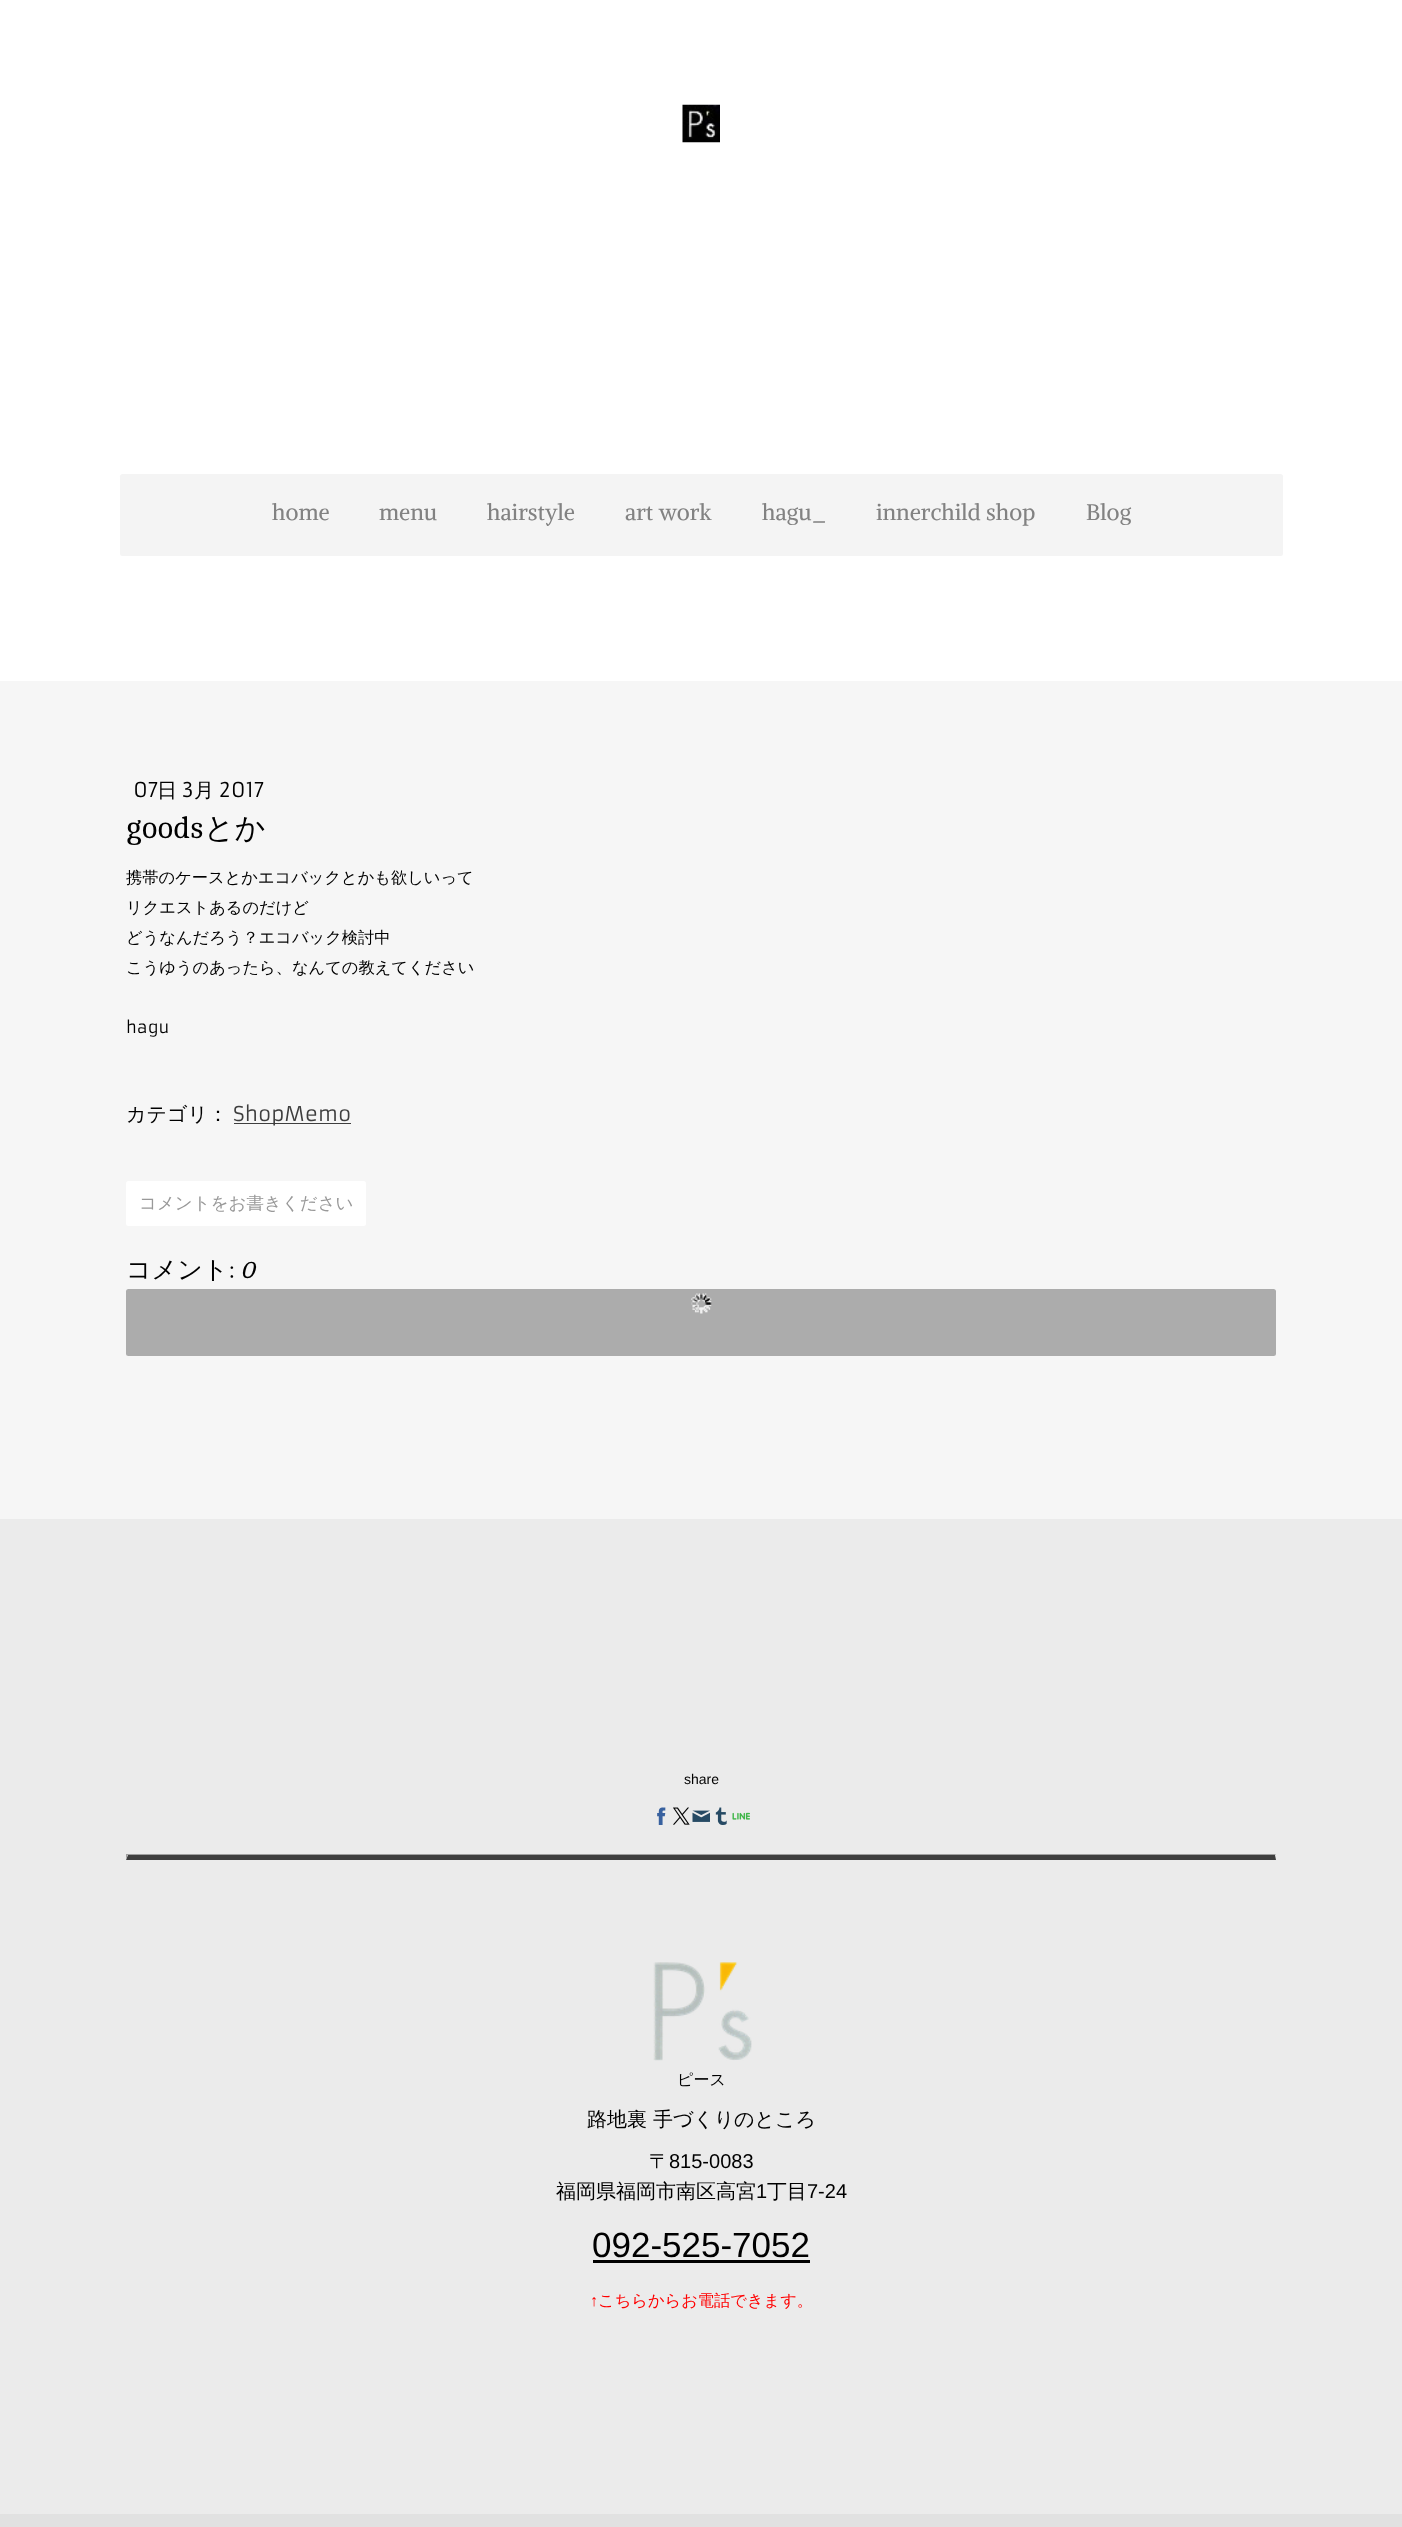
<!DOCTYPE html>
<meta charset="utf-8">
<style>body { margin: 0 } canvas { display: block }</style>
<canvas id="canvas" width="1402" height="2527"></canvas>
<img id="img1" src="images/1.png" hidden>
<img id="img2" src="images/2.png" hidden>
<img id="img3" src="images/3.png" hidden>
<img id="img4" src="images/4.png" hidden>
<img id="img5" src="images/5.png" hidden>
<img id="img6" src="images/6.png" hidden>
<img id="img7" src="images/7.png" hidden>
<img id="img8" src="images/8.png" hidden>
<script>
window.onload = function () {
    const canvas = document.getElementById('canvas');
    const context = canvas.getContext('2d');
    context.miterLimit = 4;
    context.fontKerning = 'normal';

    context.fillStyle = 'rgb(255, 255, 255)';
    context.fillRect(0, 0, 1402, 2527);
    context.drawImage(document.getElementById('img1'), 682, 104, 38, 39);
    context.fillStyle = 'rgb(244, 244, 244)';
    context.beginPath();
    context.roundRect(120, 474, 1163, 82, 2.5);
    context.fill();
    context.fillStyle = 'rgb(246, 246, 246)';
    context.fillRect(0, 681, 1402, 838);
    context.fillStyle = 'rgb(62, 62, 62)';
    context.fillRect(234, 1123, 117, 1);
    context.fillStyle = 'rgb(255, 255, 255)';
    context.beginPath();
    context.roundRect(126, 1181, 240, 45, 2.5);
    context.fill();
    context.fillStyle = 'rgb(172, 172, 172)';
    context.beginPath();
    context.roundRect(126, 1289, 1150, 67, 2.5);
    context.fill();
    context.drawImage(document.getElementById('img2'), 691, 1293, 21, 21);
    context.fillStyle = 'rgb(235, 235, 235)';
    context.fillRect(0, 1519, 1402, 995);
    context.drawImage(document.getElementById('img3'), 657, 1807, 9, 18);
    context.drawImage(document.getElementById('img4'), 673, 1807, 17, 18);
    context.drawImage(document.getElementById('img5'), 692, 1810, 18, 12);
    context.drawImage(document.getElementById('img6'), 715, 1807, 12, 18);
    context.drawImage(document.getElementById('img7'), 732, 1812, 18, 8);
    context.fillStyle = 'rgb(159, 159, 159)';
    context.fillRect(126, 1854, 1150, 1);
    context.fillStyle = 'rgb(238, 238, 238)';
    context.beginPath();
    context.moveTo(1276, 1854);
    context.lineTo(1276, 1860);
    context.lineTo(1275, 1855);
    context.closePath();
    context.fill();
    context.fillStyle = 'rgb(62, 62, 62)';
    context.beginPath();
    context.moveTo(1276, 1860);
    context.lineTo(126, 1860);
    context.lineTo(128, 1855);
    context.lineTo(1275, 1855);
    context.closePath();
    context.fill();
    context.fillStyle = 'rgb(159, 159, 159)';
    context.beginPath();
    context.moveTo(126, 1860);
    context.lineTo(126, 1854);
    context.lineTo(127.5, 1855);
    context.closePath();
    context.fill();
    context.drawImage(document.getElementById('img8'), 653, 1962, 99, 99);
    context.fillStyle = 'rgb(0, 0, 0)';
    context.fillRect(593, 2260, 217, 3);
    context.fillStyle = 'rgb(225, 225, 225)';
    context.fillRect(0, 2514, 1402, 13);
    context.font = '22.5px Alike';
    context.fillStyle = 'rgb(130, 130, 130)';
    context.fillText('home', 272, 520);
    context.fillText('menu', 379, 520);
    context.fillText('hairstyle', 487, 520);
    context.fillText('art work', 625, 520);
    context.fillText('hagu_', 762, 520);
    context.fillText('innerchild shop', 876, 520);
    context.fillText('Blog', 1086, 520);
    context.font = '20px Armata';
    context.fillStyle = 'rgb(0, 0, 0)';
    context.fillText('07', 133, 797);
    context.font = '500 20px WenQuanYi Zen Hei';
    context.fillText('日', 157, 797);
    context.font = '20px Armata';
    context.fillText('3', 182, 797);
    context.font = '500 20px WenQuanYi Zen Hei';
    context.fillText('月', 194, 797);
    context.font = '20px Armata';
    context.fillText('2017', 219, 797);
    context.font = '30px Cambo';
    context.fillText('goods', 126, 838);
    context.font = '500 30px WenQuanYi Zen Hei';
    context.fillText('とか', 204, 838);
    context.font = '500 16.25px WenQuanYi Zen Hei';
    context.fillText('携帯のケースとかエコバックとかも欲しいって', 126, 883);
    context.fillText('リクエストあるのだけど', 126, 913);
    context.fillText('どうなんだろう？エコバック検討中', 126, 943);
    context.fillText('こうゆうのあったら、なんての教えてください', 126, 973);
    context.font = '16.25px Armata';
    context.fillText('hagu', 126, 1033);
    context.font = '500 20px WenQuanYi Zen Hei';
    context.fillText('カテゴリ：', 126, 1121);
    context.font = '20px Armata';
    context.fillStyle = 'rgb(62, 62, 62)';
    context.fillText('ShopMemo', 233, 1121);
    context.font = '500 17.5px WenQuanYi Zen Hei';
    context.fillStyle = 'rgb(153, 153, 153)';
    context.fillText('コメントをお書きください', 139, 1209);
    context.font = '500 25px WenQuanYi Zen Hei';
    context.fillStyle = 'rgb(0, 0, 0)';
    context.fillText('コメント', 126, 1278);
    context.font = '25px Cambo';
    context.fillText(':', 229, 1278);
    context.font = 'italic 25px Cambo';
    context.fillText('0', 240, 1278);
    context.font = '14px Arimo';
    context.fillText('share', 684, 1784);
    context.font = '500 16px WenQuanYi Zen Hei';
    context.fillText('ピース', 677, 2085);
    context.font = '500 20px WenQuanYi Zen Hei';
    context.fillText('路地裏 手づくり', 587, 2126);
    context.fillText('のところ', 734, 2126);
    context.fillText('〒', 649, 2168);
    context.font = '20px Arimo';
    context.fillText('815-0083', 669, 2168);
    context.font = '500 20px WenQuanYi Zen Hei';
    context.fillText('福岡県福岡市南区高宮', 556, 2198);
    context.font = '20px Arimo';
    context.fillText('1', 756, 2198);
    context.font = '500 20px WenQuanYi Zen Hei';
    context.fillText('丁目', 767, 2198);
    context.font = '20px Arimo';
    context.fillText('7-24', 807, 2198);
    context.font = '35px Arimo';
    context.fillText('092-525-7052', 592, 2257);
    context.font = '16.25px Arimo';
    context.fillStyle = 'rgb(255, 0, 0)';
    context.fillText('↑', 590, 2306);
    context.font = '500 16.25px WenQuanYi Zen Hei';
    context.fillText('こちらからお電話できます。', 598, 2306);
};
</script>
